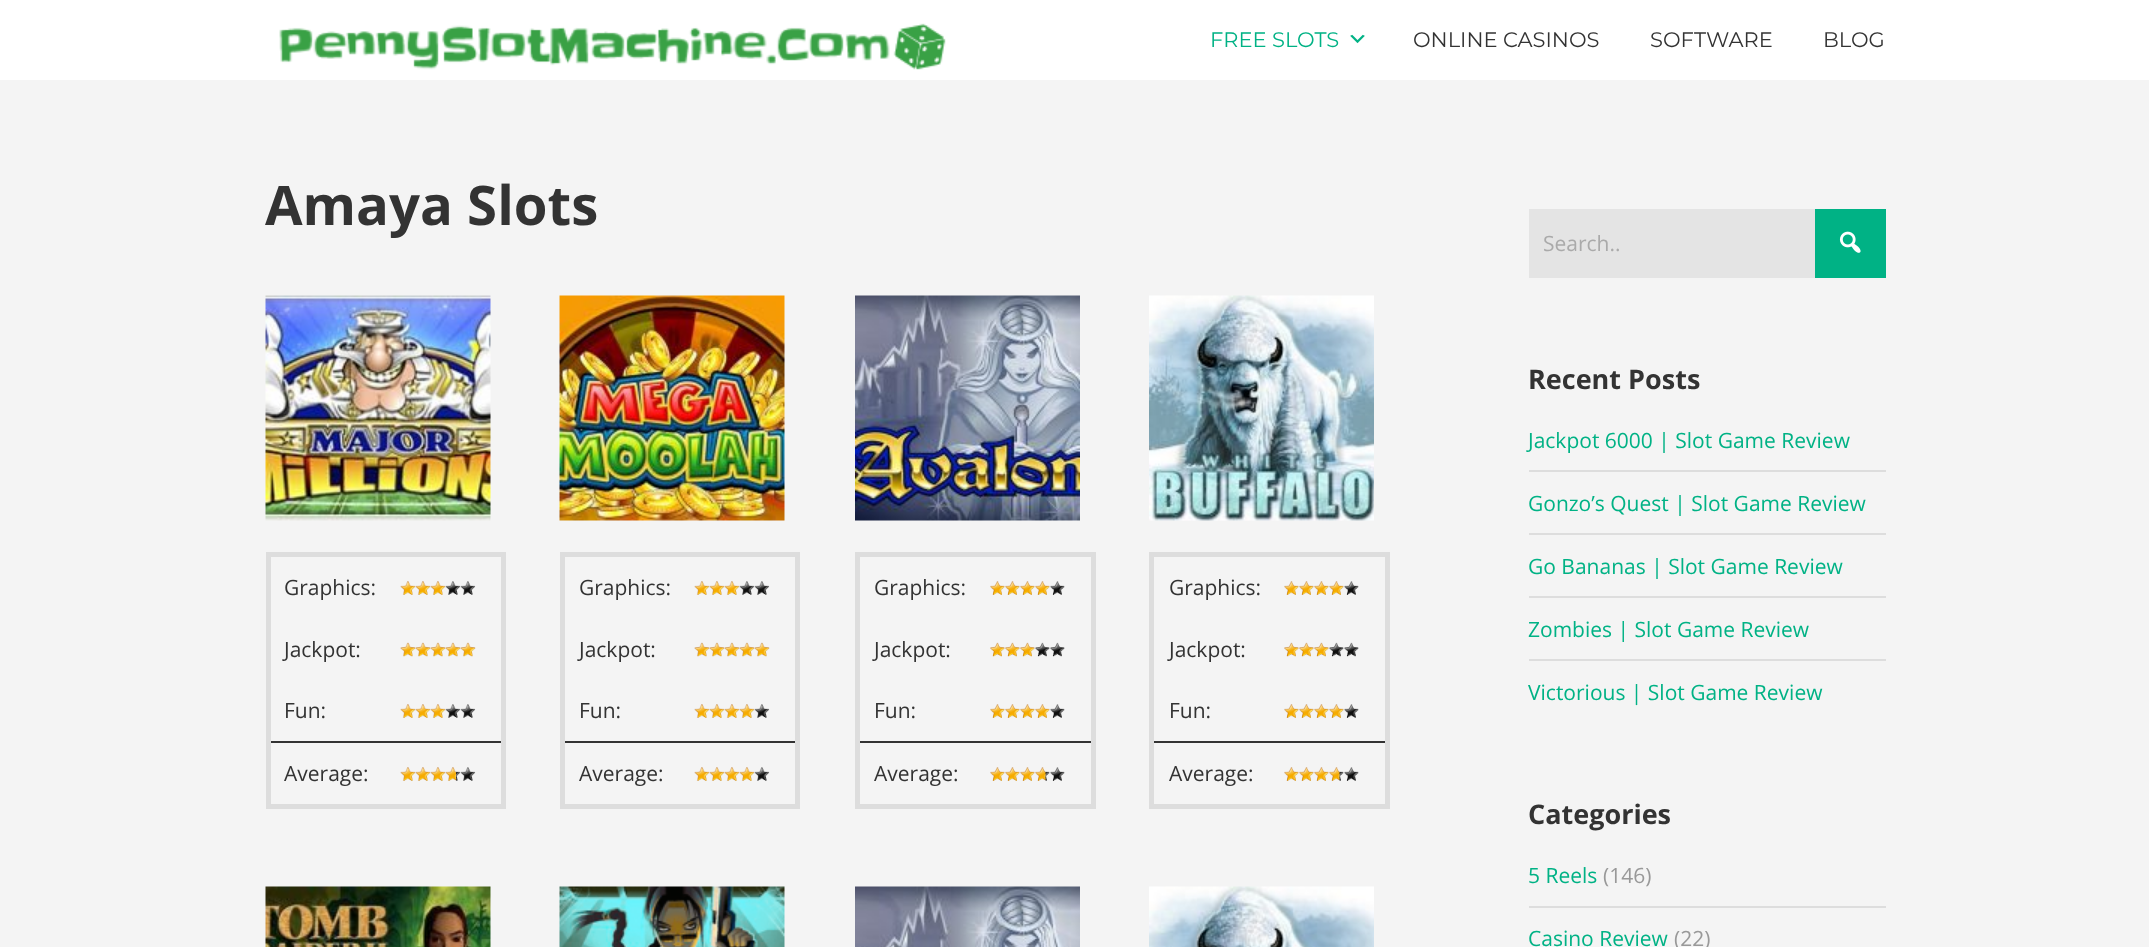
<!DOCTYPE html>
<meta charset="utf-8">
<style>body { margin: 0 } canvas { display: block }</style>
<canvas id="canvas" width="2149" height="947"></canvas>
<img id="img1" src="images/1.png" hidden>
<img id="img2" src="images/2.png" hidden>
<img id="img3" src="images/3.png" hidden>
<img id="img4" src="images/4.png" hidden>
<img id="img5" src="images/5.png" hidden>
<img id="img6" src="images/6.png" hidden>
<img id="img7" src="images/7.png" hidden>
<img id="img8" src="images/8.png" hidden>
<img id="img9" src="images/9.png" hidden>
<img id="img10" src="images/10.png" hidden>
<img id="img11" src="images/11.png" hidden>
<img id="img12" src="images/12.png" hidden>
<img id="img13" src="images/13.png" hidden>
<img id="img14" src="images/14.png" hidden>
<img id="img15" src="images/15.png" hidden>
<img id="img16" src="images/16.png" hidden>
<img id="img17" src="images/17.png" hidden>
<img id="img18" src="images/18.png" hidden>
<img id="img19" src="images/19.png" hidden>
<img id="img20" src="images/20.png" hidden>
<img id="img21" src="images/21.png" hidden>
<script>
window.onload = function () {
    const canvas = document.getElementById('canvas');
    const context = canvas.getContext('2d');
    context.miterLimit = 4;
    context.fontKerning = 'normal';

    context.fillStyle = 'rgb(255, 255, 255)';
    context.fillRect(0, 0, 2149, 947);
    context.drawImage(document.getElementById('img1'), 279, 23, 667, 47);
    context.drawImage(document.getElementById('img2'), 1350, 34, 15, 10);
    context.fillStyle = 'rgb(244, 244, 244)';
    context.fillRect(0, 80, 2149, 867);
    context.drawImage(document.getElementById('img3'), 265, 295, 226, 226);
    context.fillStyle = 'rgb(221, 221, 221)';
    context.fillRect(266, 552, 240, 5);
    context.fillStyle = 'rgb(51, 51, 51)';
    context.fillRect(267, 741, 237, 2);
    context.fillStyle = 'rgb(221, 221, 221)';
    context.fillRect(501, 552, 5, 257);
    context.fillRect(266, 804, 240, 5);
    context.fillRect(266, 552, 5, 257);
    context.drawImage(document.getElementById('img4'), 400, 581, 76, 14);
    context.drawImage(document.getElementById('img5'), 400, 642, 76, 15);
    context.drawImage(document.getElementById('img4'), 400, 704, 76, 14);
    context.drawImage(document.getElementById('img6'), 400, 767, 76, 14);
    context.drawImage(document.getElementById('img7'), 559, 295, 226, 226);
    context.fillRect(560, 552, 240, 5);
    context.fillStyle = 'rgb(51, 51, 51)';
    context.fillRect(561, 741, 237, 2);
    context.fillStyle = 'rgb(221, 221, 221)';
    context.fillRect(795, 552, 5, 257);
    context.fillRect(560, 804, 240, 5);
    context.fillRect(560, 552, 5, 257);
    context.drawImage(document.getElementById('img4'), 694, 581, 76, 14);
    context.drawImage(document.getElementById('img5'), 694, 642, 76, 15);
    context.drawImage(document.getElementById('img8'), 694, 704, 76, 14);
    context.drawImage(document.getElementById('img8'), 694, 767, 76, 14);
    context.drawImage(document.getElementById('img9'), 855, 295, 225, 226);
    context.fillRect(855, 552, 240, 5);
    context.fillStyle = 'rgb(51, 51, 51)';
    context.fillRect(857, 741, 237, 2);
    context.fillStyle = 'rgb(221, 221, 221)';
    context.fillRect(1091, 552, 5, 257);
    context.fillRect(855, 804, 240, 5);
    context.fillRect(855, 552, 5, 257);
    context.drawImage(document.getElementById('img10'), 990, 581, 75, 14);
    context.drawImage(document.getElementById('img11'), 990, 642, 75, 15);
    context.drawImage(document.getElementById('img10'), 990, 704, 75, 14);
    context.drawImage(document.getElementById('img12'), 990, 767, 75, 14);
    context.drawImage(document.getElementById('img13'), 1149, 295, 225, 226);
    context.fillRect(1149, 552, 240, 5);
    context.fillStyle = 'rgb(51, 51, 51)';
    context.fillRect(1151, 741, 237, 2);
    context.fillStyle = 'rgb(221, 221, 221)';
    context.fillRect(1385, 552, 5, 257);
    context.fillRect(1149, 804, 240, 5);
    context.fillRect(1149, 552, 5, 257);
    context.drawImage(document.getElementById('img14'), 1284, 581, 75, 14);
    context.drawImage(document.getElementById('img15'), 1284, 642, 75, 15);
    context.drawImage(document.getElementById('img14'), 1284, 704, 75, 14);
    context.drawImage(document.getElementById('img16'), 1284, 767, 75, 14);
    context.drawImage(document.getElementById('img17'), 265, 886, 226, 61);
    context.drawImage(document.getElementById('img18'), 559, 886, 226, 61);
    context.drawImage(document.getElementById('img19'), 855, 886, 225, 61);
    context.drawImage(document.getElementById('img20'), 1149, 886, 225, 61);
    context.fillStyle = 'rgb(228, 228, 228)';
    context.fillRect(1529, 209, 286, 69);
    context.fillStyle = 'rgb(0, 178, 133)';
    context.fillRect(1815, 209, 71, 69);
    context.drawImage(document.getElementById('img21'), 1839, 231, 22, 22);
    context.fillStyle = 'rgb(221, 221, 221)';
    context.fillRect(1529, 470, 357, 2);
    context.fillRect(1529, 533, 357, 2);
    context.fillRect(1529, 596, 357, 2);
    context.fillRect(1529, 659, 357, 2);
    context.fillRect(1529, 906, 357, 2);
    context.font = '21px Montserrat';
    context.fillStyle = 'rgb(0, 178, 133)';
    context.fillText('FREE SLOTS', 1210, 47);
    context.fillStyle = 'rgb(51, 51, 51)';
    context.fillText('ONLINE CASINOS', 1413, 47);
    context.fillText('SOFTWARE', 1650, 47);
    context.fillText('BLOG', 1823, 47);
    context.font = 'bold 54.5px Open Sans';
    context.fillText('Amaya Slots', 265, 225);
    context.font = '21px Open Sans';
    context.fillText('Graphics:', 284, 595);
    context.fillText('Jackpot:', 284, 657);
    context.fillText('Fun:', 284, 718);
    context.fillText('Average:', 284, 781);
    context.fillText('Graphics:', 579, 595);
    context.fillText('Jackpot:', 579, 657);
    context.fillText('Fun:', 579, 718);
    context.fillText('Average:', 579, 781);
    context.fillText('Graphics:', 874, 595);
    context.fillText('Jackpot:', 874, 657);
    context.fillText('Fun:', 874, 718);
    context.fillText('Average:', 874, 781);
    context.fillText('Graphics:', 1169, 595);
    context.fillText('Jackpot:', 1169, 657);
    context.fillText('Fun:', 1169, 718);
    context.fillText('Average:', 1169, 781);
    context.fillStyle = 'rgb(170, 170, 170)';
    context.fillText('Search..', 1543, 251);
    context.font = 'bold 27px Open Sans';
    context.fillStyle = 'rgb(51, 51, 51)';
    context.fillText('Recent Posts', 1528, 389);
    context.font = '21px Open Sans';
    context.fillStyle = 'rgb(0, 178, 133)';
    context.fillText('Jackpot 6000 | Slot Game Review', 1528, 448);
    context.fillText('Gonzo’s Quest | Slot Game Review', 1528, 511);
    context.fillText('Go Bananas | Slot Game Review', 1528, 574);
    context.fillText('Zombies | Slot Game Review', 1528, 637);
    context.fillText('Victorious | Slot Game Review', 1528, 700);
    context.font = 'bold 27px Open Sans';
    context.fillStyle = 'rgb(51, 51, 51)';
    context.fillText('Categories', 1528, 824);
    context.font = '21px Open Sans';
    context.fillStyle = 'rgb(0, 178, 133)';
    context.fillText('5 Reels', 1528, 883);
    context.fillStyle = 'rgb(153, 153, 153)';
    context.fillText('(146)', 1603, 883);
    context.fillStyle = 'rgb(0, 178, 133)';
    context.fillText('Casino Review', 1528, 946);
    context.fillStyle = 'rgb(153, 153, 153)';
    context.fillText('(22)', 1674, 946);
};
</script>
